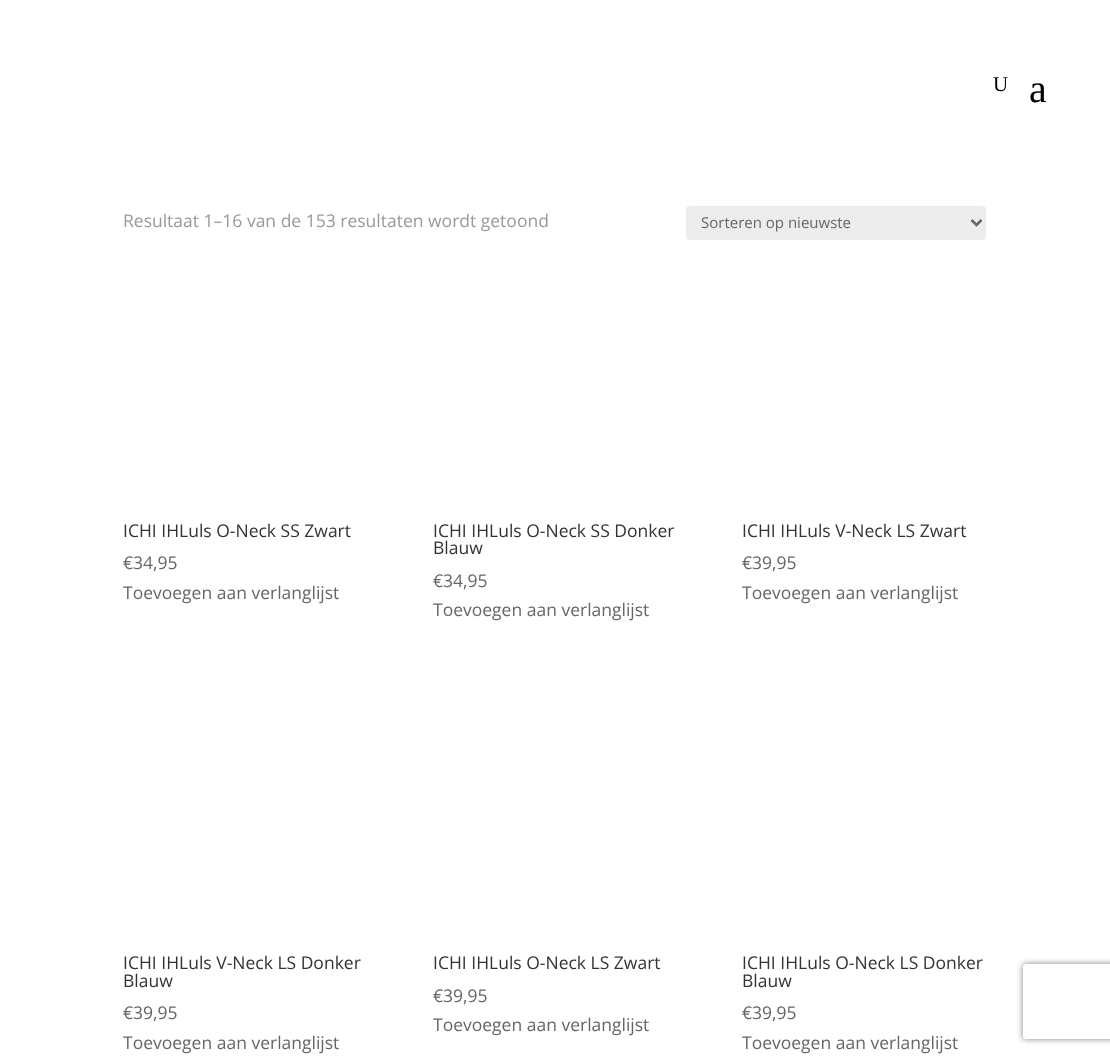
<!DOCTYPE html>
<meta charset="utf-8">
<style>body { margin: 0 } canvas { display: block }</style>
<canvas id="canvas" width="1110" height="1056"></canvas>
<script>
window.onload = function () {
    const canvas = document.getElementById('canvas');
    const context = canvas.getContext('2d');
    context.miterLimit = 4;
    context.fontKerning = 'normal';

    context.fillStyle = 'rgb(255, 255, 255)';
    context.fillRect(0, 0, 1110, 1056);
    context.fillStyle = 'rgb(236, 236, 236)';
    context.beginPath();
    context.roundRect(686, 206, 300, 34, 4);
    context.fill();
    context.beginPath();
    context.moveTo(971.5, 220);
    context.lineTo(976.5, 225);
    context.lineTo(981.5, 220);
    context.strokeStyle = 'rgb(102, 102, 102)';
    context.lineWidth = 2.5;
    context.stroke();
    context.save();
    context.beginPath();
    context.moveTo(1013, 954);
    context.lineTo(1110, 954);
    context.lineTo(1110, 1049);
    context.lineTo(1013, 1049);
    context.closePath();
    context.moveTo(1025.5, 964);
    context.lineTo(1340.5, 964);
    context.bezierCurveTo(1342, 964, 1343, 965, 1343, 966.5);
    context.lineTo(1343, 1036.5);
    context.bezierCurveTo(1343, 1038, 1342, 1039, 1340.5, 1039);
    context.lineTo(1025.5, 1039);
    context.bezierCurveTo(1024, 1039, 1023, 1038, 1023, 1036.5);
    context.lineTo(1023, 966.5);
    context.bezierCurveTo(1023, 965, 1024, 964, 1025.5, 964);
    context.closePath();
    context.clip('evenodd');
    context.fillStyle = 'rgb(128, 128, 128)';
    context.filter = 'blur(3px)';
    context.beginPath();
    context.roundRect(1023, 964, 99, 75, 2.5);
    context.fill();
    context.filter = 'none';
    context.restore();
    context.font = '21px Liberation Serif';
    context.fillStyle = 'rgb(0, 0, 0)';
    context.fillText('U', 993, 91);
    context.font = '40px Liberation Serif';
    context.fillText('a', 1029, 102);
    context.font = '17.5px Open Sans';
    context.fillStyle = 'rgb(153, 153, 153)';
    context.fillText('Resultaat 1–16 van de 153 resultaten wordt getoond', 123, 227);
    context.font = '15px Open Sans';
    context.fillStyle = 'rgb(102, 102, 102)';
    context.fillText('Sorteren op nieuwste', 701, 228);
    context.font = '17.5px Open Sans';
    context.fillStyle = 'rgb(51, 51, 51)';
    context.fillText('ICHI IHLuls O-Neck SS Zwart', 123, 537);
    context.fillStyle = 'rgb(102, 102, 102)';
    context.fillText('€34,95', 123, 569);
    context.fillText('Toevoegen aan verlanglijst', 123, 599);
    context.fillStyle = 'rgb(51, 51, 51)';
    context.fillText('ICHI IHLuls O-Neck SS Donker', 433, 537);
    context.fillText('Blauw', 433, 554);
    context.fillStyle = 'rgb(102, 102, 102)';
    context.fillText('€34,95', 433, 587);
    context.fillText('Toevoegen aan verlanglijst', 433, 616);
    context.fillStyle = 'rgb(51, 51, 51)';
    context.fillText('ICHI IHLuls V-Neck LS Zwart', 742, 537);
    context.fillStyle = 'rgb(102, 102, 102)';
    context.fillText('€39,95', 742, 569);
    context.fillText('Toevoegen aan verlanglijst', 742, 599);
    context.fillStyle = 'rgb(51, 51, 51)';
    context.fillText('ICHI IHLuls V-Neck LS Donker', 123, 969);
    context.fillText('Blauw', 123, 987);
    context.fillStyle = 'rgb(102, 102, 102)';
    context.fillText('€39,95', 123, 1019);
    context.fillText('Toevoegen aan verlanglijst', 123, 1049);
    context.fillStyle = 'rgb(51, 51, 51)';
    context.fillText('ICHI IHLuls O-Neck LS Zwart', 433, 969);
    context.fillStyle = 'rgb(102, 102, 102)';
    context.fillText('€39,95', 433, 1002);
    context.fillText('Toevoegen aan verlanglijst', 433, 1031);
    context.fillStyle = 'rgb(51, 51, 51)';
    context.fillText('ICHI IHLuls O-Neck LS Donker', 742, 969);
    context.fillText('Blauw', 742, 987);
    context.fillStyle = 'rgb(102, 102, 102)';
    context.fillText('€39,95', 742, 1019);
    context.fillText('Toevoegen aan verlanglijst', 742, 1049);
};
</script>
